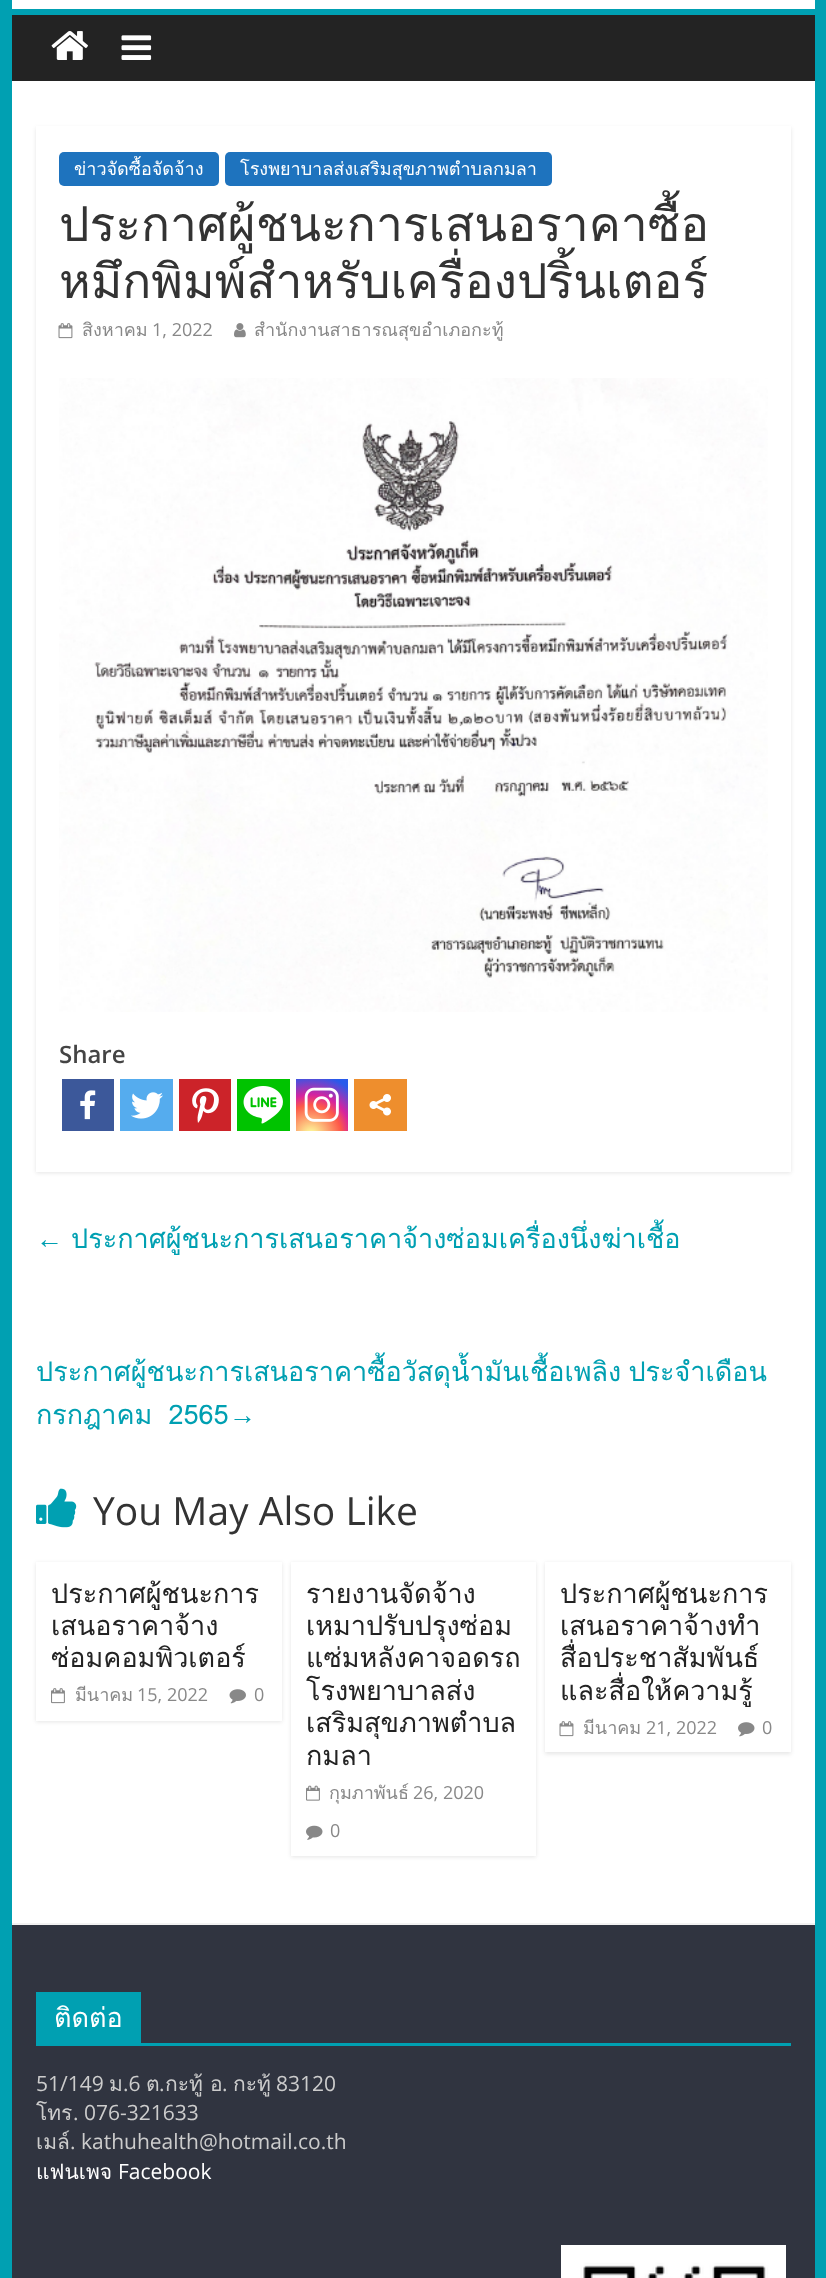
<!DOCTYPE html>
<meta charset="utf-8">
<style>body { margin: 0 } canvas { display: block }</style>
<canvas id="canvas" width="826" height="2278"></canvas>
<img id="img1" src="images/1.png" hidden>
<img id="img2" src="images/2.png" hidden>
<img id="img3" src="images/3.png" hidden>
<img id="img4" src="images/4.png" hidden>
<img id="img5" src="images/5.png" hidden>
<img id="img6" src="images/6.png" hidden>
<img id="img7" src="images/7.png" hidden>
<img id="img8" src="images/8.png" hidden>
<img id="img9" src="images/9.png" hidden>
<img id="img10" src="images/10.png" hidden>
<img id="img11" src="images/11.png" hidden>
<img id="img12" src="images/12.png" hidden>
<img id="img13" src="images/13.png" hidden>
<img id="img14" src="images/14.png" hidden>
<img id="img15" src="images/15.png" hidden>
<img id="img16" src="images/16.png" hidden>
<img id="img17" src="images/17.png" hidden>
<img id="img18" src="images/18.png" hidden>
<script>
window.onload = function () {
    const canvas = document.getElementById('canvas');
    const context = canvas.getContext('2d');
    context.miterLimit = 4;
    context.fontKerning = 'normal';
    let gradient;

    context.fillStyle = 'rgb(0, 160, 178)';
    context.fillRect(0, 0, 826, 2278);
    context.fillStyle = 'rgb(255, 255, 255)';
    context.fillRect(12, 0, 803, 9);
    context.fillStyle = 'rgb(35, 35, 35)';
    context.fillRect(12, 15, 803, 66);
    context.drawImage(document.getElementById('img1'), 51, 31, 37, 29);
    context.drawImage(document.getElementById('img2'), 121, 35, 31, 25);
    context.fillStyle = 'rgb(255, 255, 255)';
    context.fillRect(12, 81, 803, 1842);
    context.save();
    context.beginPath();
    context.moveTo(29, 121);
    context.lineTo(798, 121);
    context.lineTo(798, 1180);
    context.lineTo(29, 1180);
    context.closePath();
    context.moveTo(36, 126);
    context.lineTo(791, 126);
    context.lineTo(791, 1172);
    context.lineTo(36, 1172);
    context.closePath();
    context.clip('evenodd');
    context.fillStyle = 'rgba(0, 0, 0, 0.1)';
    context.filter = 'blur(2px)';
    context.beginPath();
    context.rect(36, 128, 755, 1045);
    context.fill();
    context.filter = 'none';
    context.restore();
    context.fillStyle = 'rgb(30, 115, 190)';
    context.beginPath();
    context.roundRect(59, 152, 160, 34, 5);
    context.fill();
    context.beginPath();
    context.roundRect(225, 152, 327, 34, 5);
    context.fill();
    context.drawImage(document.getElementById('img3'), 58, 323, 15, 16);
    context.drawImage(document.getElementById('img4'), 234, 323, 12, 15);
    context.drawImage(document.getElementById('img5'), 59, 378, 709, 634);
    context.fillStyle = 'rgb(60, 88, 154)';
    context.fillRect(62, 1079, 52, 52);
    context.drawImage(document.getElementById('img6'), 80, 1090, 16, 30);
    context.fillStyle = 'rgb(85, 172, 238)';
    context.fillRect(120, 1079, 53, 52);
    context.drawImage(document.getElementById('img7'), 131, 1092, 32, 27);
    context.fillStyle = 'rgb(204, 35, 41)';
    context.fillRect(179, 1079, 52, 52);
    context.drawImage(document.getElementById('img8'), 192, 1088, 27, 35);
    context.fillStyle = 'rgb(0, 195, 0)';
    context.fillRect(237, 1079, 53, 52);
    context.drawImage(document.getElementById('img9'), 243, 1086, 40, 38);
    gradient = context.createRadialGradient(311, 1135, 0, 311, 1135, 67);
    gradient.addColorStop(0, 'rgb(253, 244, 151)');
    gradient.addColorStop(0.05, 'rgb(253, 244, 151)');
    gradient.addColorStop(0.45, 'rgb(253, 89, 73)');
    gradient.addColorStop(0.6, 'rgb(214, 36, 159)');
    gradient.addColorStop(0.9, 'rgb(40, 90, 235)');
    context.fillStyle = gradient;
    context.fillRect(296, 1079, 52, 52);
    context.drawImage(document.getElementById('img10'), 304, 1087, 35, 35);
    context.fillStyle = 'rgb(238, 142, 45)';
    context.fillRect(354, 1079, 53, 52);
    context.drawImage(document.getElementById('img11'), 369, 1094, 22, 22);
    context.drawImage(document.getElementById('img12'), 36, 1488, 41, 40);
    context.save();
    context.beginPath();
    context.moveTo(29, 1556);
    context.lineTo(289, 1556);
    context.lineTo(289, 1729);
    context.lineTo(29, 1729);
    context.closePath();
    context.moveTo(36, 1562);
    context.lineTo(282, 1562);
    context.lineTo(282, 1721);
    context.lineTo(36, 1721);
    context.closePath();
    context.clip('evenodd');
    context.fillStyle = 'rgba(0, 0, 0, 0.1)';
    context.filter = 'blur(2px)';
    context.beginPath();
    context.rect(36, 1563, 246, 159);
    context.fill();
    context.filter = 'none';
    context.restore();
    context.drawImage(document.getElementById('img13'), 51, 1688, 14, 16);
    context.drawImage(document.getElementById('img14'), 229, 1689, 17, 15);
    context.save();
    context.beginPath();
    context.moveTo(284, 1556);
    context.lineTo(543, 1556);
    context.lineTo(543, 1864);
    context.lineTo(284, 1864);
    context.closePath();
    context.moveTo(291, 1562);
    context.lineTo(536, 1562);
    context.lineTo(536, 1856);
    context.lineTo(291, 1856);
    context.closePath();
    context.clip('evenodd');
    context.fillStyle = 'rgba(0, 0, 0, 0.1)';
    context.filter = 'blur(2px)';
    context.beginPath();
    context.rect(291, 1563, 245, 294);
    context.fill();
    context.filter = 'none';
    context.restore();
    context.drawImage(document.getElementById('img15'), 306, 1785, 14, 16);
    context.drawImage(document.getElementById('img16'), 306, 1825, 17, 15);
    context.save();
    context.beginPath();
    context.moveTo(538, 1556);
    context.lineTo(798, 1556);
    context.lineTo(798, 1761);
    context.lineTo(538, 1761);
    context.closePath();
    context.moveTo(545, 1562);
    context.lineTo(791, 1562);
    context.lineTo(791, 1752);
    context.lineTo(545, 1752);
    context.closePath();
    context.clip('evenodd');
    context.fillStyle = 'rgba(0, 0, 0, 0.1)';
    context.filter = 'blur(2px)';
    context.beginPath();
    context.rect(545, 1563, 246, 191);
    context.fill();
    context.filter = 'none';
    context.restore();
    context.drawImage(document.getElementById('img3'), 559, 1721, 15, 16);
    context.drawImage(document.getElementById('img17'), 738, 1722, 17, 15);
    context.fillStyle = 'rgb(48, 52, 64)';
    context.fillRect(12, 1925, 803, 353);
    context.fillStyle = 'rgb(242, 242, 242)';
    context.fillRect(12, 1923, 803, 2);
    context.fillStyle = 'rgb(0, 160, 178)';
    context.fillRect(36, 2043, 755, 3);
    context.fillRect(36, 1992, 105, 51);
    context.drawImage(document.getElementById('img18'), 561, 2245, 225, 33);
    context.font = '18px Loma';
    context.fillStyle = 'rgb(255, 255, 255)';
    context.fillText('ข่าวจัดซื้อจัดจ้าง', 74, 175);
    context.fillText('โรงพยาบาลส่งเสริมสุขภาพตำบลกมลา', 240, 175);
    context.font = '48px Loma';
    context.fillStyle = 'rgb(51, 51, 51)';
    context.fillText('ประกาศผู้ชนะการเสนอราคาซื้อ', 59, 241);
    context.fillText('หมึกพิมพ์สำหรับเครื่องปริ้นเตอร์', 59, 298);
    context.font = '18px Loma';
    context.fillStyle = 'rgb(136, 136, 136)';
    context.fillText('สิงหาคม', 82, 336);
    context.font = '18px Open Sans';
    context.fillText('1, 2022', 152, 336);
    context.font = '18px Loma';
    context.fillText('สำนักงานสาธารณสุขอำเภอกะทู้', 254, 336);
    context.font = '600 24px Open Sans';
    context.fillStyle = 'rgb(68, 68, 68)';
    context.fillText('Share', 59, 1063);
    context.font = '27px Liberation Serif';
    context.fillStyle = 'rgb(0, 160, 178)';
    context.fillText('←', 36, 1248);
    context.font = '27px Loma';
    context.fillText('ประกาศผู้ชนะการเสนอราคาจ้างซ่อมเครื่องนึ่งฆ่าเชื้อ', 71, 1248);
    context.wordSpacing = '-2px';
    context.fillText('ประกาศผู้ชนะการเสนอราคาซื้อวัสดุน้ำมันเชื้อเพลิง ประจำเดือน', 36, 1381);
    context.wordSpacing = '7px';
    context.fillText('กรกฎาคม 2565', 36, 1424);
    context.wordSpacing = '0px';
    context.font = '27px Liberation Serif';
    context.fillText('→', 229, 1424);
    context.font = '39px Open Sans';
    context.fillStyle = 'rgb(51, 51, 51)';
    context.fillText('You May Also Like', 93, 1525);
    context.font = '27px Loma';
    context.fillStyle = 'rgb(35, 35, 35)';
    context.fillText('ประกาศผู้ชนะการ', 51, 1603);
    context.fillText('เสนอราคาจ้าง', 51, 1635);
    context.fillText('ซ่อมคอมพิวเตอร์', 51, 1667);
    context.font = '18px Loma';
    context.fillStyle = 'rgb(136, 136, 136)';
    context.fillText('มีนาคม', 75, 1701);
    context.font = '18px Open Sans';
    context.fillText('15, 2022', 137, 1701);
    context.fillText('0', 254, 1701);
    context.font = '27px Loma';
    context.fillStyle = 'rgb(35, 35, 35)';
    context.fillText('รายงานจัดจ้าง', 306, 1603);
    context.fillText('เหมาปรับปรุงซ่อม', 306, 1635);
    context.fillText('แซ่มหลังคาจอดรถ', 306, 1667);
    context.fillText('โรงพยาบาลส่ง', 306, 1700);
    context.fillText('เสริมสุขภาพตำบล', 306, 1732);
    context.fillText('กมลา', 306, 1765);
    context.font = '18px Loma';
    context.fillStyle = 'rgb(136, 136, 136)';
    context.fillText('กุมภาพันธ์', 329, 1799);
    context.font = '18px Open Sans';
    context.fillText('26, 2020', 413, 1799);
    context.fillText('0', 330, 1837);
    context.font = '27px Loma';
    context.fillStyle = 'rgb(35, 35, 35)';
    context.fillText('ประกาศผู้ชนะการ', 560, 1603);
    context.fillText('เสนอราคาจ้างทำ', 560, 1635);
    context.fillText('สื่อประชาสัมพันธ์', 560, 1667);
    context.fillText('และสื่อให้ความรู้', 560, 1700);
    context.font = '18px Loma';
    context.fillStyle = 'rgb(136, 136, 136)';
    context.fillText('มีนาคม', 583, 1734);
    context.font = '18px Open Sans';
    context.fillText('21, 2022', 646, 1734);
    context.fillText('0', 762, 1734);
    context.font = '27px Loma';
    context.fillStyle = 'rgb(255, 255, 255)';
    context.fillText('ติดต่อ', 54, 2027);
    context.font = '21px Open Sans';
    context.fillStyle = 'rgb(204, 204, 204)';
    context.fillText('51/149', 36, 2091);
    context.font = '21px Loma';
    context.fillText('ม', 109, 2091);
    context.font = '21px Open Sans';
    context.fillText('.6', 123, 2091);
    context.font = '21px Loma';
    context.fillText('ต', 146, 2091);
    context.font = '21px Open Sans';
    context.fillText('.', 159, 2091);
    context.font = '21px Loma';
    context.fillText('กะทู้ อ', 165, 2091);
    context.font = '21px Open Sans';
    context.fillText('.', 222, 2091);
    context.font = '21px Loma';
    context.fillText('กะทู้', 233, 2091);
    context.font = '21px Open Sans';
    context.fillText('83120', 276, 2091);
    context.font = '21px Loma';
    context.fillText('โทร', 36, 2120);
    context.font = '21px Open Sans';
    context.fillText('. 076-321633', 73, 2120);
    context.font = '21px Loma';
    context.fillText('เมล์', 36, 2149);
    context.font = '21px Open Sans';
    context.fillText('. kathuhealth@hotmail.co.th', 70, 2149);
    context.font = '21px Loma';
    context.fillStyle = 'rgb(255, 255, 255)';
    context.fillText('แฟนเพจ', 36, 2179);
    context.font = '21px Open Sans';
    context.fillText('Facebook', 118, 2179);
};
</script>
